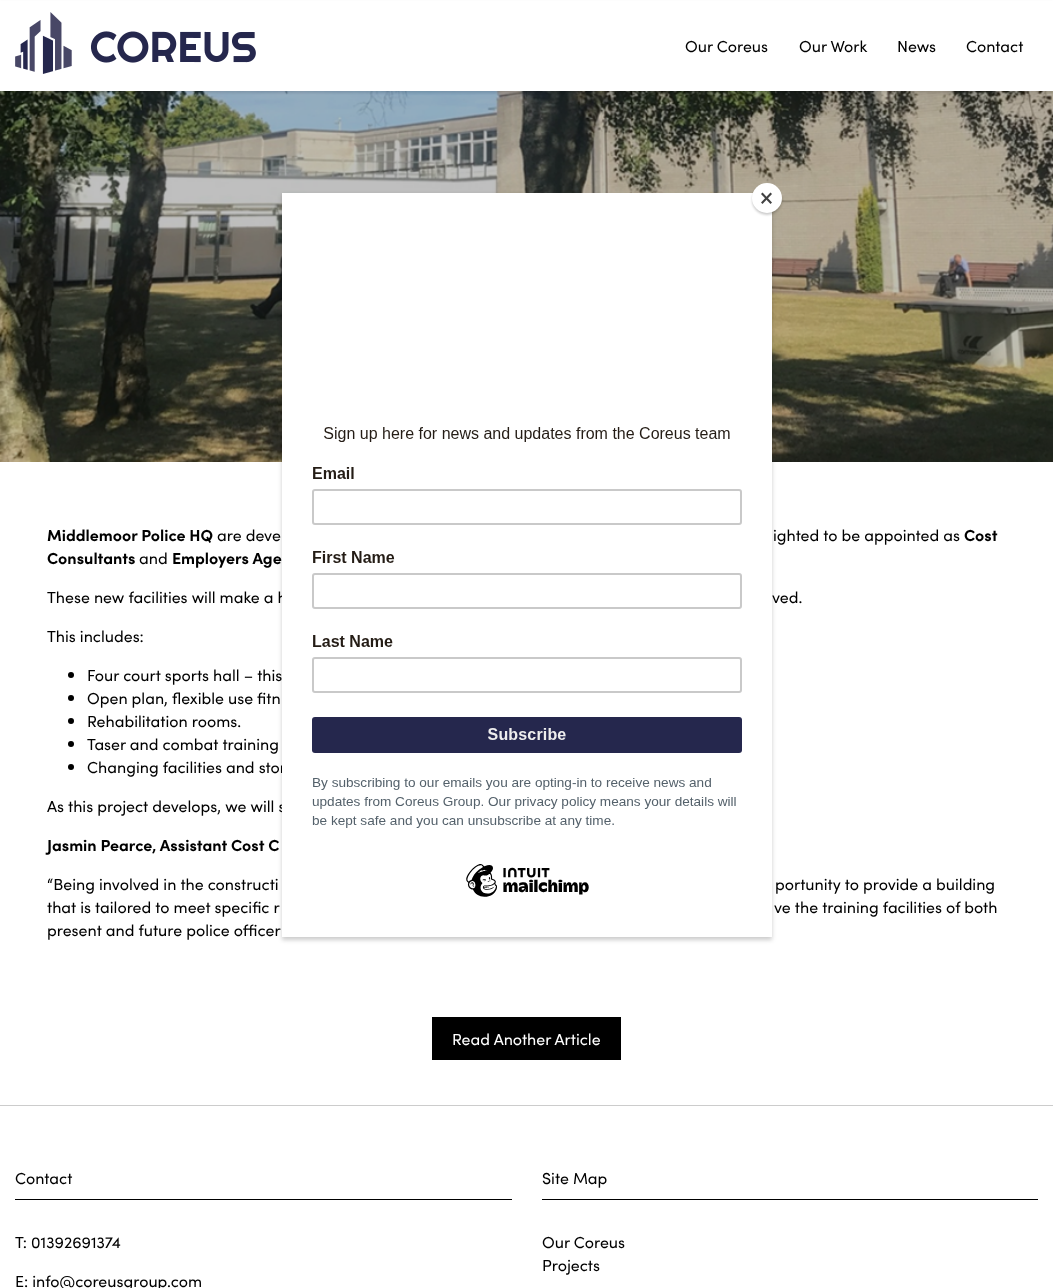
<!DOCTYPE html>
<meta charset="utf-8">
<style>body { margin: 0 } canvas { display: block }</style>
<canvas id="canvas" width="1053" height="1288"></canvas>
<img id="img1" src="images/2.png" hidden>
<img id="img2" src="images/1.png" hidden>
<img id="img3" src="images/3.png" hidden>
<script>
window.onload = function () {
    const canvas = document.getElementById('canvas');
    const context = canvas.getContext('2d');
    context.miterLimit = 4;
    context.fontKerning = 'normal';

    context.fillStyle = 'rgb(255, 255, 255)';
    context.fillRect(0, 0, 1053, 1288);
    context.drawImage(document.getElementById('img1'), 0, 91, 1053, 371);
    context.fillStyle = 'rgba(0, 0, 0, 0.1)';
    context.filter = 'blur(1px)';
    context.beginPath();
    context.rect(0, 2, 1053, 91);
    context.fill();
    context.filter = 'none';
    context.fillStyle = 'rgb(255, 255, 255)';
    context.fillRect(0, 1, 1053, 90);
    context.drawImage(document.getElementById('img2'), 15, 12, 241, 62);
    context.fillStyle = 'rgb(0, 0, 0)';
    context.beginPath();
    context.arc(71, 675, 3, 0, 2 * Math.PI);
    context.fill();
    context.beginPath();
    context.arc(71, 698, 3, 0, 2 * Math.PI);
    context.fill();
    context.beginPath();
    context.arc(71, 721, 3, 0, 2 * Math.PI);
    context.fill();
    context.beginPath();
    context.arc(71, 744, 3, 0, 2 * Math.PI);
    context.fill();
    context.beginPath();
    context.arc(71, 767, 3, 0, 2 * Math.PI);
    context.fill();
    context.fillRect(432, 1017, 189, 43);
    context.fillStyle = 'rgb(204, 204, 204)';
    context.fillRect(0, 1105, 1053, 1);
    context.fillStyle = 'rgb(0, 0, 0)';
    context.fillRect(15, 1199, 497, 1);
    context.fillRect(542, 1199, 496, 1);
    context.fillStyle = 'rgba(0, 0, 0, 0.2)';
    context.filter = 'blur(2px)';
    context.beginPath();
    context.rect(282, 195, 490, 745);
    context.fill();
    context.filter = 'none';
    context.font = '16px Sofia';
    context.fillStyle = 'rgb(0, 0, 0)';
    context.fillText('Our Coreus', 685, 52);
    context.fillText('Our Work', 799, 52);
    context.fillText('News', 897, 52);
    context.fillText('Contact', 966, 52);
    context.font = 'bold 16px Sofia';
    context.fillText('Middlemoor Police HQ', 47, 541);
    context.font = '16px Sofia';
    context.fillText('are deve', 217, 541);
    context.fillText('ighted to be appointed as', 773, 541);
    context.font = 'bold 16px Sofia';
    context.fillText('Cost', 964, 541);
    context.fillText('Consultants', 47, 564);
    context.font = '16px Sofia';
    context.fillText('and', 139, 564);
    context.font = 'bold 16px Sofia';
    context.fillText('Employers Age', 172, 564);
    context.font = '16px Sofia';
    context.fillText('These new facilities will make a h', 47, 603);
    context.fillText('ved.', 772, 603);
    context.fillText('This includes:', 47, 642);
    context.fillText('Four court sports hall – this', 87, 681);
    context.fillText('Open plan, flexible use fitn', 87, 704);
    context.fillText('Rehabilitation rooms.', 87, 727);
    context.fillText('Taser and combat training', 87, 750);
    context.fillText('Changing facilities and stor', 87, 773);
    context.fillText('As this project develops, we will s', 47, 812);
    context.font = 'bold 16px Sofia';
    context.fillText('Jasmin Pearce, Assistant Cost C', 47, 851);
    context.font = '16px Sofia';
    context.fillText('“Being involved in the constructi', 47, 890);
    context.fillText('portunity to provide a building', 775, 890);
    context.fillText('that is tailored to meet specific r', 47, 913);
    context.fillText('ve the training facilities of both', 774, 913);
    context.fillText('present and future police officer', 47, 936);
    context.fillStyle = 'rgb(255, 255, 255)';
    context.fillText('Read Another Article', 452, 1045);
    context.fillStyle = 'rgb(0, 0, 0)';
    context.fillText('Contact', 15, 1184);
    context.fillText('T: 01392691374', 15, 1248);
    context.fillText('E: info@coreusgroup.com', 15, 1287);
    context.fillText('Site Map', 542, 1184);
    context.fillText('Our Coreus', 542, 1248);
    context.fillText('Projects', 542, 1271);
    context.drawImage(document.getElementById('img3'), 282, 193, 490, 744);
    context.fillStyle = 'rgba(0, 0, 0, 0.2)';
    context.filter = 'blur(1px)';
    context.beginPath();
    context.roundRect(752, 185, 30, 30, 15);
    context.fill();
    context.filter = 'none';
    context.fillStyle = 'rgb(255, 255, 255)';
    context.beginPath();
    context.arc(767, 198, 15, 0, 2 * Math.PI);
    context.fill();
    context.fillStyle = 'rgb(65, 65, 65)';
    context.beginPath();
    context.moveTo(770.5, 192.5);
    context.lineTo(772, 194);
    context.lineTo(762.5, 204);
    context.lineTo(761, 202.5);
    context.closePath();
    context.fill();
    context.beginPath();
    context.moveTo(761, 194);
    context.lineTo(762.5, 192.5);
    context.lineTo(772, 202.5);
    context.lineTo(770.5, 204);
    context.closePath();
    context.fill();
};
</script>
